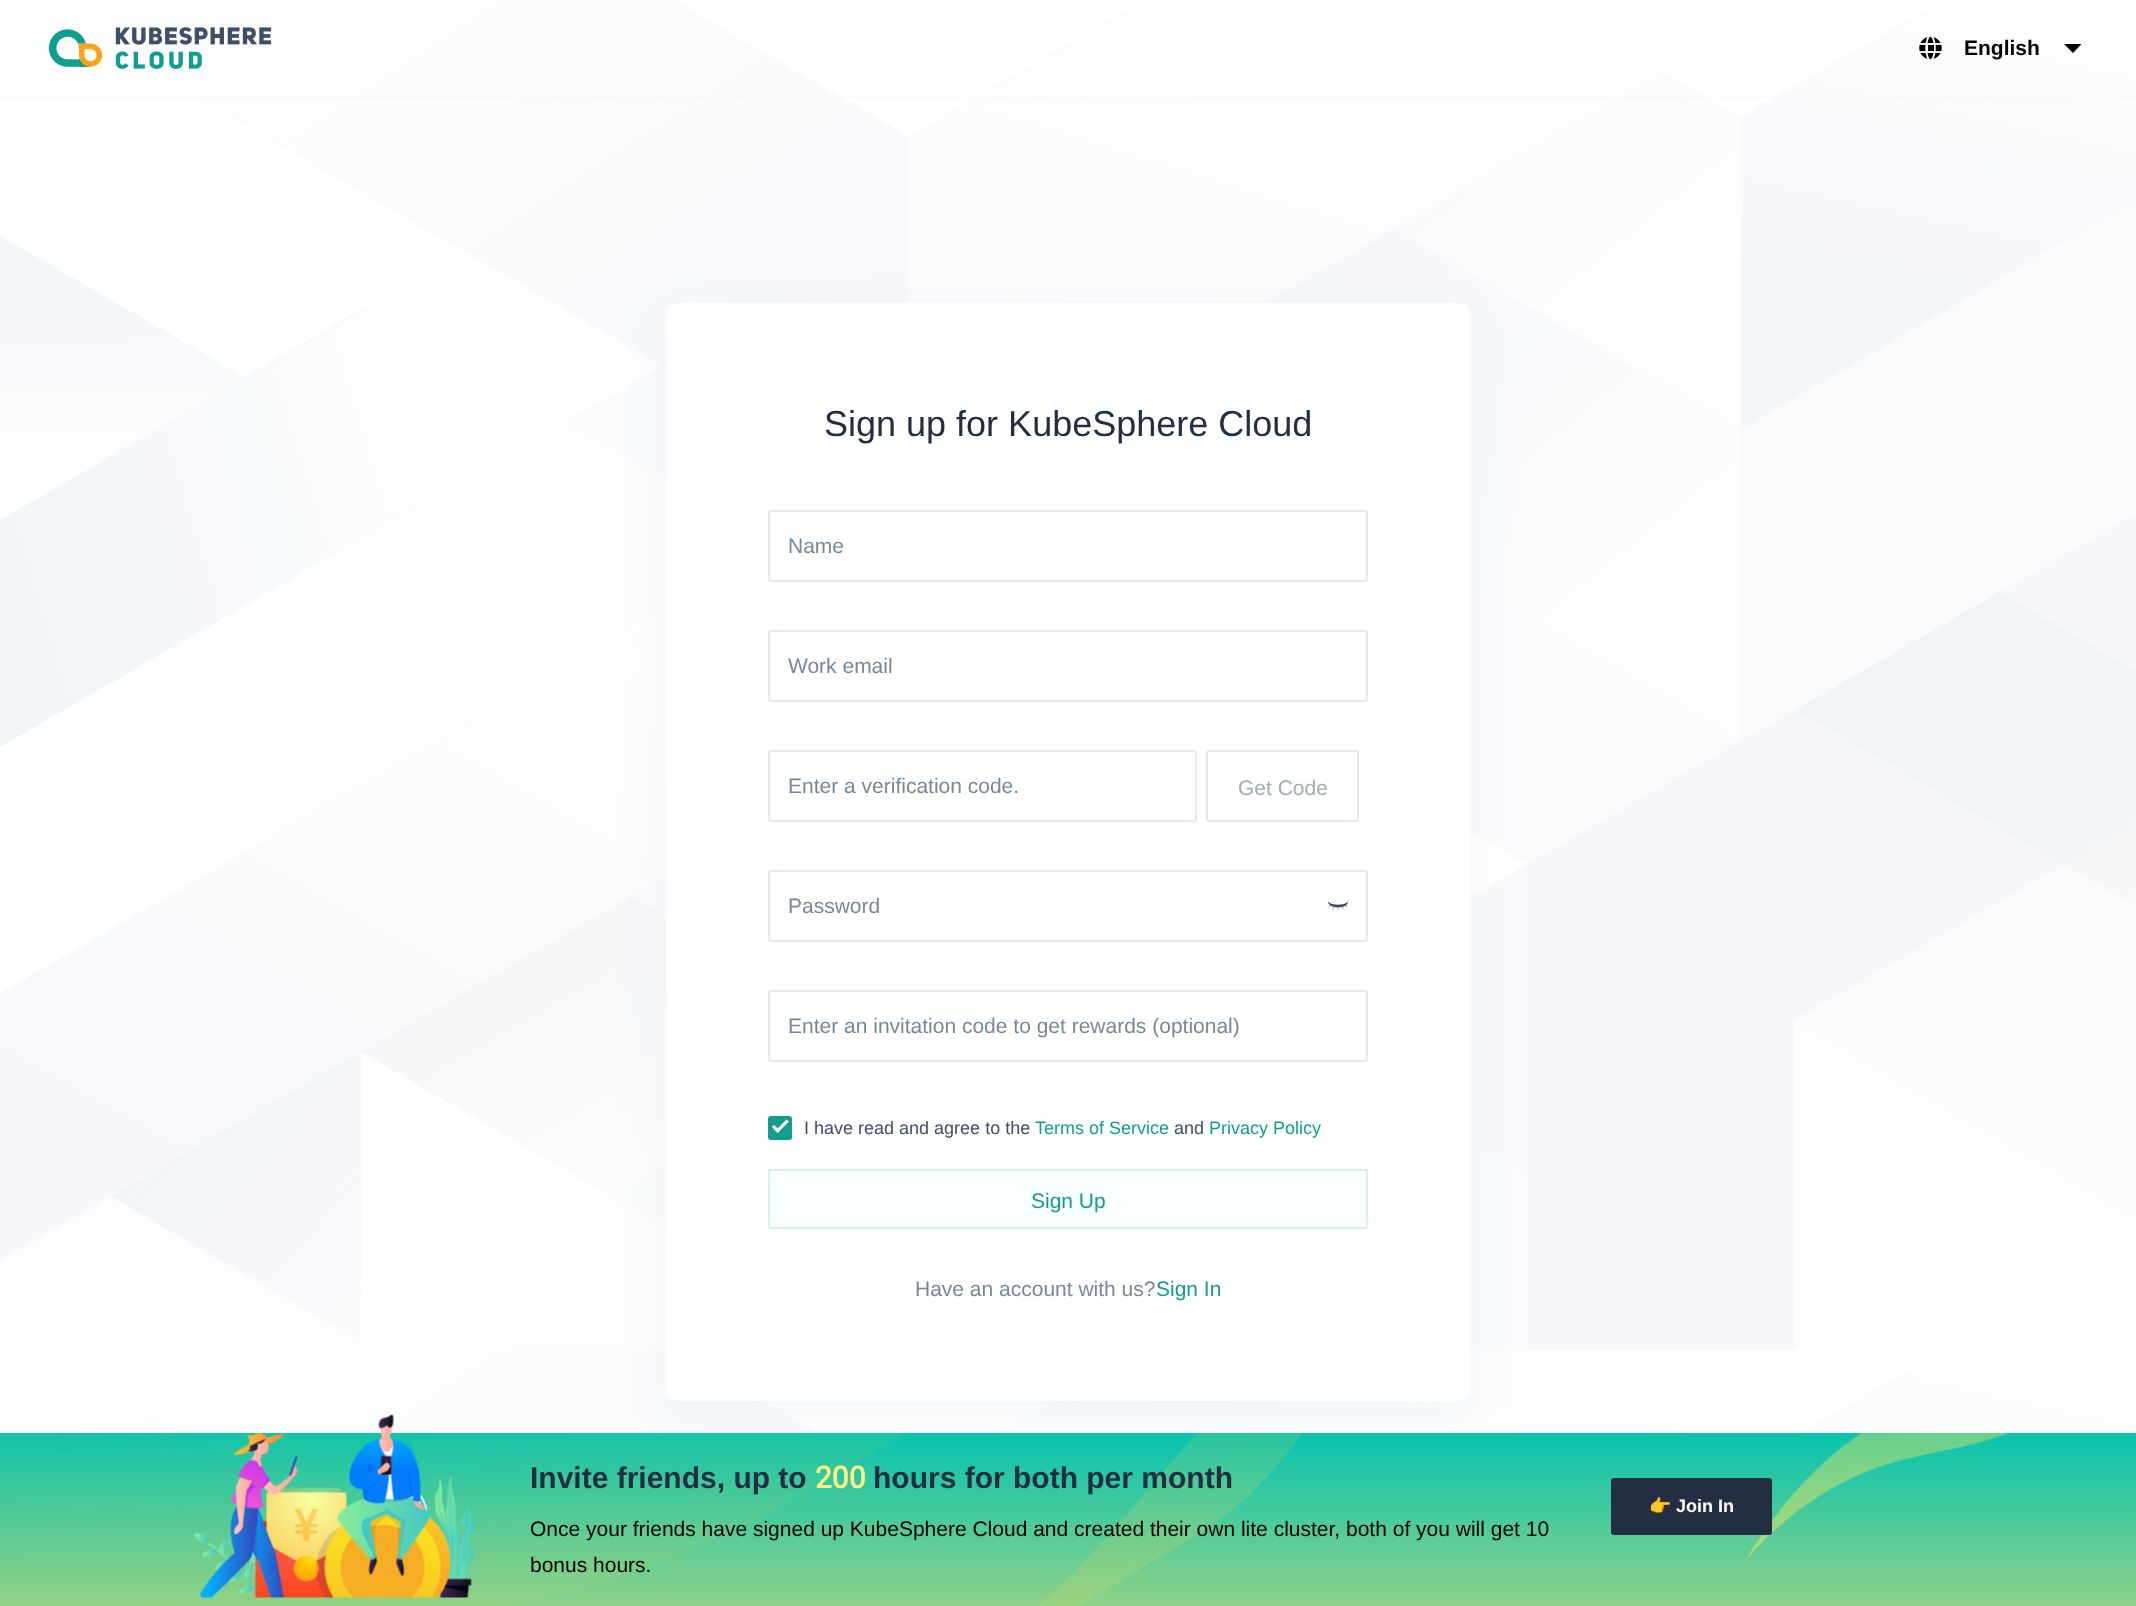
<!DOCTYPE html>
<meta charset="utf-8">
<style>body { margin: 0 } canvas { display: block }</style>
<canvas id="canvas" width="2136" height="1606"></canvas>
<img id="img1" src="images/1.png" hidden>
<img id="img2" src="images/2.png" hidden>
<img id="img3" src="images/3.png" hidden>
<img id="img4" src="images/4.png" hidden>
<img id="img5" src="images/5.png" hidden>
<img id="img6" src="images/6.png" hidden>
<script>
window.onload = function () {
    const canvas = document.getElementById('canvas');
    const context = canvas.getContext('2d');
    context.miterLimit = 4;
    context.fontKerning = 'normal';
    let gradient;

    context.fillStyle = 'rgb(255, 255, 255)';
    context.fillRect(0, 0, 2136, 1606);
    context.drawImage(document.getElementById('img1'), 0, 0, 2136, 1433);
    context.drawImage(document.getElementById('img2'), 48, 27, 224, 42);
    context.drawImage(document.getElementById('img3'), 1919, 36, 23, 24);
    context.fillStyle = 'rgb(0, 0, 0)';
    context.beginPath();
    context.moveTo(2064, 44);
    context.lineTo(2073, 53);
    context.lineTo(2081.5, 44);
    context.closePath();
    context.fill('evenodd');
    context.fillStyle = 'rgba(239, 244, 249, 0.3)';
    context.fillRect(0, 96, 2136, 2);
    context.fillStyle = 'rgba(239, 244, 249, 0.8)';
    context.filter = 'blur(22.5px)';
    context.beginPath();
    context.roundRect(666, 318, 804, 1098, 12);
    context.fill();
    context.filter = 'none';
    context.fillStyle = 'rgb(255, 255, 255)';
    context.beginPath();
    context.roundRect(666, 303, 804, 1098, 12);
    context.fill();
    context.beginPath();
    context.roundRect(769, 511, 598, 70, 2);
    context.strokeStyle = 'rgb(227, 233, 239)';
    context.lineWidth = 2;
    context.stroke();
    context.beginPath();
    context.roundRect(769, 631, 598, 70, 2);
    context.stroke();
    context.beginPath();
    context.roundRect(769, 751, 427, 70, 2);
    context.stroke();
    context.beginPath();
    context.roundRect(1207, 751, 151, 70, 2);
    context.stroke();
    context.beginPath();
    context.roundRect(769, 871, 598, 70, 2);
    context.stroke();
    context.drawImage(document.getElementById('img4'), 1328, 901, 20, 10);
    context.beginPath();
    context.roundRect(769, 991, 598, 70, 2);
    context.stroke();
    context.fillStyle = 'rgb(17, 158, 143)';
    context.beginPath();
    context.roundRect(768, 1116, 24, 24, 3);
    context.fill();
    context.fillStyle = 'rgb(255, 255, 255)';
    context.beginPath();
    context.moveTo(786.5, 1119.5);
    context.lineTo(789, 1121.5);
    context.lineTo(777.5, 1133);
    context.lineTo(775.5, 1130.5);
    context.closePath();
    context.fill();
    context.beginPath();
    context.moveTo(774, 1125);
    context.lineTo(780, 1130.5);
    context.lineTo(777.5, 1133);
    context.lineTo(772, 1127);
    context.closePath();
    context.fill();
    context.fillStyle = 'rgb(249, 254, 254)';
    context.beginPath();
    context.roundRect(769, 1170, 598, 58, 2);
    context.fill();
    context.strokeStyle = 'rgb(214, 240, 238)';
    context.stroke();
    gradient = context.createLinearGradient(1068, 1432, 1068, 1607);
    gradient.addColorStop(0, 'rgb(7, 196, 175)');
    gradient.addColorStop(1, 'rgb(142, 209, 136)');
    context.fillStyle = gradient;
    context.fillRect(0, 1433, 2136, 173);
    context.drawImage(document.getElementById('img5'), 0, 1433, 2010, 173);
    context.drawImage(document.getElementById('img6'), 194, 1414, 281, 184);
    context.fillStyle = 'rgb(36, 46, 66)';
    context.beginPath();
    context.roundRect(1612, 1479, 159, 55, 2);
    context.fill();
    context.strokeStyle = 'rgb(36, 46, 66)';
    context.stroke();
    context.font = 'bold 21px Liberation Sans';
    context.fillStyle = 'rgb(0, 0, 0)';
    context.fillText('English', 1964, 55);
    context.font = '36px Liberation Sans';
    context.fillStyle = 'rgb(36, 46, 66)';
    context.fillText('Sign up for KubeSphere Cloud', 824, 436);
    context.font = '21px Liberation Sans';
    context.fillStyle = 'rgb(121, 135, 156)';
    context.fillText('Name', 788, 553);
    context.fillText('Work email', 788, 673);
    context.fillText('Enter a verification code.', 788, 793);
    context.fillStyle = 'rgb(161, 171, 186)';
    context.fillText('Get Code', 1238, 795);
    context.fillStyle = 'rgb(121, 135, 156)';
    context.fillText('Password', 788, 913);
    context.fillText('Enter an invitation code to get rewards (optional)', 788, 1033);
    context.font = '18px Liberation Sans';
    context.fillStyle = 'rgb(64, 78, 104)';
    context.fillText('I have read and agree to the', 804, 1134);
    context.fillStyle = 'rgb(17, 158, 143)';
    context.fillText('Terms of Service', 1035, 1134);
    context.fillStyle = 'rgb(64, 78, 104)';
    context.fillText('and', 1174, 1134);
    context.fillStyle = 'rgb(17, 158, 143)';
    context.fillText('Privacy Policy', 1209, 1134);
    context.font = '21px Liberation Sans';
    context.fillText('Sign Up', 1031, 1208);
    context.fillStyle = 'rgb(121, 135, 156)';
    context.fillText('Have an account with us?', 915, 1296);
    context.fillStyle = 'rgb(17, 158, 143)';
    context.fillText('Sign In', 1156, 1296);
    context.font = 'bold 30px Liberation Sans';
    context.fillStyle = 'rgb(36, 46, 66)';
    context.fillText('Invite friends, up to', 530, 1488);
    context.font = 'bold 30px Roboto';
    context.fillStyle = 'rgb(255, 242, 129)';
    context.fillText('200', 815, 1488);
    context.font = 'bold 30px Liberation Sans';
    context.fillStyle = 'rgb(36, 46, 66)';
    context.fillText('hours for both per month', 873, 1488);
    context.font = '21px Liberation Sans';
    context.fillStyle = 'rgb(0, 0, 0)';
    context.fillText('Once your friends have signed up KubeSphere Cloud and created their own lite cluster, both of you will get 10', 530, 1536);
    context.fillText('bonus hours.', 530, 1572);
    context.font = 'bold 18px Noto Color Emoji';
    context.fillStyle = 'rgb(255, 255, 255)';
    context.fillText('👉', 1649, 1512);
    context.font = 'bold 18px Liberation Sans';
    context.fillText('Join In', 1676, 1512);
};
</script>
